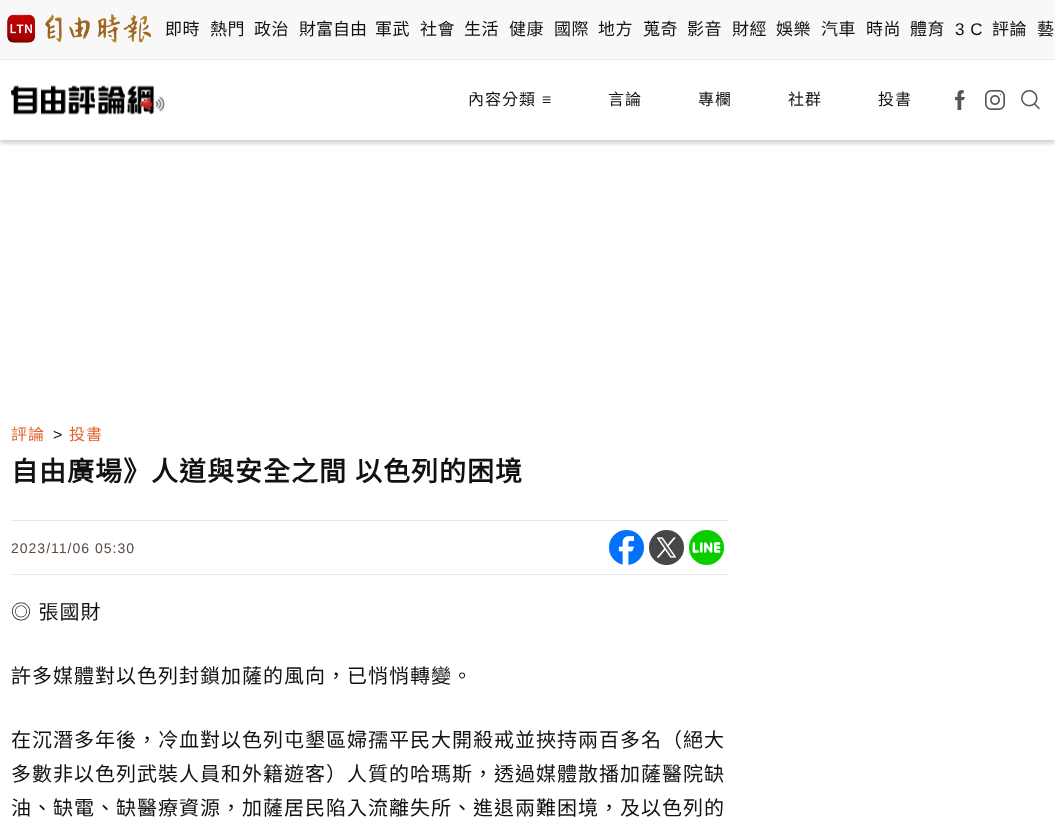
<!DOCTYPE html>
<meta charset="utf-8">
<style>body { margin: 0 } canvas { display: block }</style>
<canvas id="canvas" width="1055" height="819"></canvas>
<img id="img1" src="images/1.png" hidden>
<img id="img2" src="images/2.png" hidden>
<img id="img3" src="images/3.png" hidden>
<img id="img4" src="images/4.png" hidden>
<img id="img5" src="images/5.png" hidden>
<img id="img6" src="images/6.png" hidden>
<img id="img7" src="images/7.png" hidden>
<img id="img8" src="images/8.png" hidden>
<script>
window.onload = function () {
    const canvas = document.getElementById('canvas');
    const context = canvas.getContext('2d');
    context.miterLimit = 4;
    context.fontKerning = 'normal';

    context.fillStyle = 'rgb(255, 255, 255)';
    context.fillRect(0, 0, 1055, 819);
    context.fillStyle = 'rgb(248, 248, 248)';
    context.fillRect(0, 0, 1055, 59);
    context.fillStyle = 'rgb(236, 236, 236)';
    context.fillRect(0, 59, 1055, 1);
    context.drawImage(document.getElementById('img1'), 7, 13, 145, 30);
    context.save();
    context.beginPath();
    context.rect(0, 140, 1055, 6);
    context.clip();
    context.fillStyle = 'rgba(0, 0, 0, 0.2)';
    context.filter = 'blur(2.5px)';
    context.beginPath();
    context.rect(0, 63, 1055, 80);
    context.fill();
    context.filter = 'none';
    context.restore();
    context.drawImage(document.getElementById('img2'), 11, 85, 154, 30);
    context.drawImage(document.getElementById('img3'), 955, 90, 10, 20);
    context.drawImage(document.getElementById('img4'), 985, 90, 20, 20);
    context.drawImage(document.getElementById('img5'), 1021, 90, 19, 20);
    context.fillStyle = 'rgb(231, 231, 231)';
    context.fillRect(11, 520, 718, 1);
    context.fillRect(11, 574, 718, 1);
    context.drawImage(document.getElementById('img6'), 609, 530, 35, 35);
    context.drawImage(document.getElementById('img7'), 649, 530, 35, 35);
    context.drawImage(document.getElementById('img8'), 689, 530, 35, 35);
    context.letterSpacing = '0.5px';
    context.font = '17px Noto Sans CJK TC';
    context.fillStyle = 'rgb(17, 17, 17)';
    context.fillText('即時', 165, 35);
    context.fillText('熱門', 210, 35);
    context.fillText('政治', 254, 35);
    context.letterSpacing = '0px';
    context.fillText('財富自由', 299, 35);
    context.letterSpacing = '0.5px';
    context.fillText('軍武', 375, 35);
    context.fillText('社會', 420, 35);
    context.fillText('生活', 464, 35);
    context.fillText('健康', 509, 35);
    context.fillText('國際', 554, 35);
    context.fillText('地方', 598, 35);
    context.fillText('蒐奇', 643, 35);
    context.fillText('影音', 687, 35);
    context.fillText('財經', 732, 35);
    context.fillText('娛樂', 776, 35);
    context.fillText('汽車', 821, 35);
    context.fillText('時尚', 866, 35);
    context.fillText('體育', 910, 35);
    context.font = '17px Liberation Sans';
    context.fillText('3 C', 955, 35);
    context.font = '17px Noto Sans CJK TC';
    context.fillText('評論', 992, 35);
    context.fillText('藝', 1037, 35);
    context.letterSpacing = '1px';
    context.font = '16px Noto Sans CJK TC';
    context.fillText('內容分類', 468, 105);
    context.font = '16px Liberation Sans';
    context.fillText('≡', 542, 105);
    context.font = '16px Noto Sans CJK TC';
    context.fillText('言論', 608, 105);
    context.fillText('專欄', 698, 105);
    context.fillText('社群', 788, 105);
    context.fillText('投書', 878, 105);
    context.fillStyle = 'rgb(227, 96, 46)';
    context.fillText('評論', 11, 440);
    context.font = '16px Liberation Sans';
    context.fillStyle = 'rgb(17, 17, 17)';
    context.fillText('>', 53, 440);
    context.font = '16px Noto Sans CJK TC';
    context.fillStyle = 'rgb(227, 96, 46)';
    context.fillText('投書', 69, 440);
    context.wordSpacing = '1px';
    context.font = 'bold 27px Noto Sans CJK TC';
    context.fillStyle = 'rgb(17, 17, 17)';
    context.fillText('自由廣場》人道與安全之間 以色列的困境', 11, 481);
    context.wordSpacing = '0px';
    context.font = '14px Liberation Sans';
    context.fillStyle = 'rgb(89, 73, 63)';
    context.fillText('2023/11/06 05:30', 11, 553);
    context.wordSpacing = '1px';
    context.font = '20px Noto Sans CJK TC';
    context.fillStyle = 'rgb(17, 17, 17)';
    context.fillText('◎ 張國財', 11, 619);
    context.wordSpacing = '0px';
    context.fillText('許多媒體對以色列封鎖加薩的風向，已悄悄轉變。', 11, 683);
    context.fillText('在沉潛多年後，冷血對以色列屯墾區婦孺平民大開殺戒並挾持兩百多名（絕大', 11, 747);
    context.fillText('多數非以色列武裝人員和外籍遊客）人質的哈瑪斯，透過媒體散播加薩醫院缺', 11, 781);
    context.fillText('油、缺電、缺醫療資源，加薩居民陷入流離失所、進退兩難困境，及以色列的', 11, 815);
};
</script>
